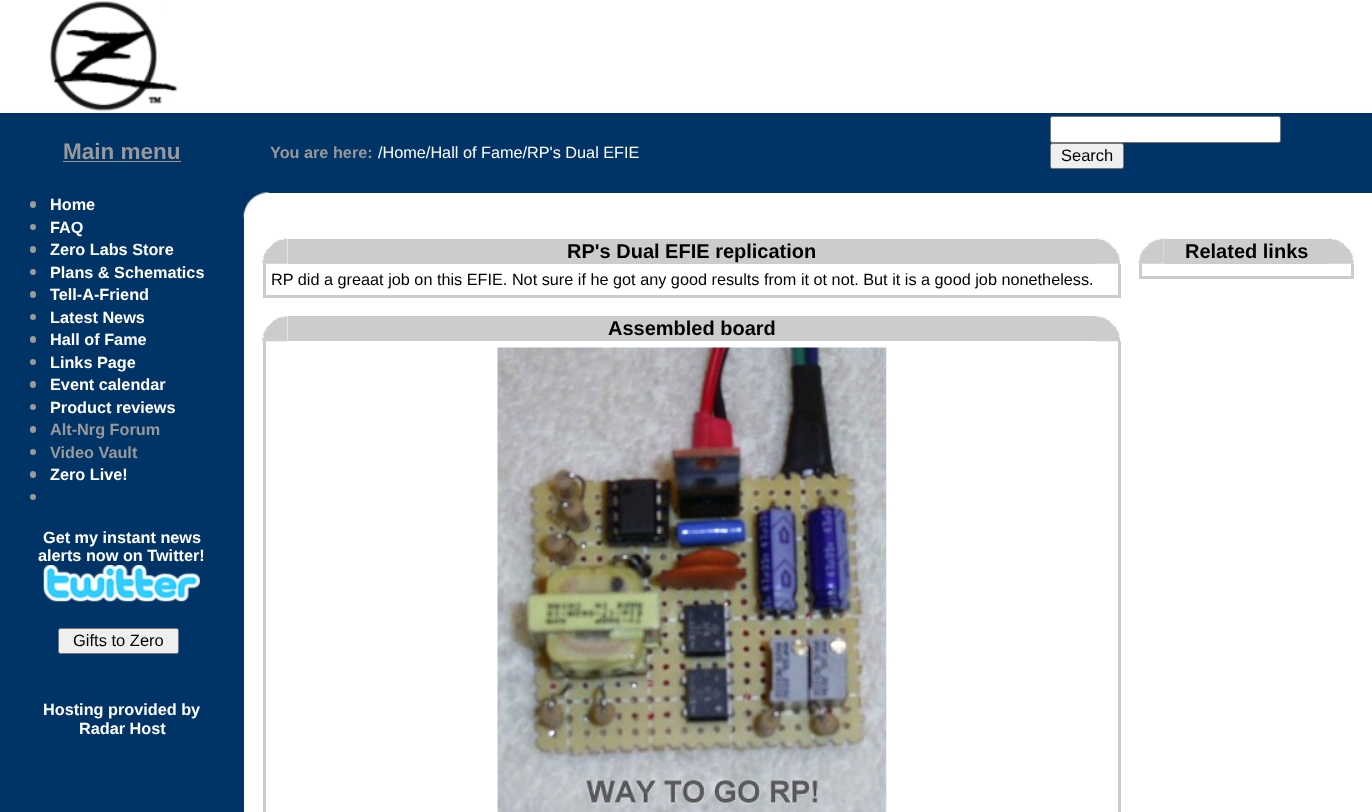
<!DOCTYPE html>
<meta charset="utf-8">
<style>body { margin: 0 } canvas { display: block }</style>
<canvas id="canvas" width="1372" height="812"></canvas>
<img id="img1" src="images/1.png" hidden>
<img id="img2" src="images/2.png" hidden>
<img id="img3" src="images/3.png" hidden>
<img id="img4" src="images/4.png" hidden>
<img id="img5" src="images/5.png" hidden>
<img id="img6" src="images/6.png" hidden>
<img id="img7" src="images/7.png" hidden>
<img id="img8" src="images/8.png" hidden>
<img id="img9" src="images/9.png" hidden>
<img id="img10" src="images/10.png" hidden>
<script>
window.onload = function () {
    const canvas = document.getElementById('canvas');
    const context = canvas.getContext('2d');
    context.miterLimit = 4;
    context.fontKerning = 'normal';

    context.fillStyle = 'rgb(255, 255, 255)';
    context.fillRect(0, 0, 1372, 812);
    context.drawImage(document.getElementById('img1'), 49, 1, 129, 111);
    context.fillStyle = 'rgb(0, 51, 102)';
    context.fillRect(0, 113, 1372, 80);
    context.fillStyle = 'rgb(153, 153, 153)';
    context.fillRect(63, 161, 118, 1);
    context.fillStyle = 'rgb(255, 255, 255)';
    context.beginPath();
    context.roundRect(1050.5, 116.5, 230, 26, 2);
    context.fill();
    context.strokeStyle = 'rgb(118, 118, 118)';
    context.stroke();
    context.fillStyle = 'rgb(239, 239, 239)';
    context.beginPath();
    context.roundRect(1050.5, 143.5, 73, 25, 2);
    context.fill();
    context.stroke();
    context.fillStyle = 'rgb(0, 51, 102)';
    context.fillRect(0, 193, 244, 619);
    context.fillStyle = 'rgb(153, 153, 153)';
    context.beginPath();
    context.roundRect(30, 201, 6, 7, 3);
    context.fill();
    context.beginPath();
    context.arc(33, 227, 3, 0, 2 * Math.PI);
    context.fill();
    context.beginPath();
    context.roundRect(30, 246, 6, 7, 3);
    context.fill();
    context.beginPath();
    context.arc(33, 272, 3, 0, 2 * Math.PI);
    context.fill();
    context.beginPath();
    context.roundRect(30, 291, 6, 7, 3);
    context.fill();
    context.beginPath();
    context.arc(33, 317, 3, 0, 2 * Math.PI);
    context.fill();
    context.beginPath();
    context.roundRect(30, 336, 6, 7, 3);
    context.fill();
    context.beginPath();
    context.arc(33, 362, 3, 0, 2 * Math.PI);
    context.fill();
    context.beginPath();
    context.roundRect(30, 381, 6, 7, 3);
    context.fill();
    context.beginPath();
    context.arc(33, 407, 3, 0, 2 * Math.PI);
    context.fill();
    context.beginPath();
    context.roundRect(30, 426, 6, 7, 3);
    context.fill();
    context.beginPath();
    context.arc(33, 452, 3, 0, 2 * Math.PI);
    context.fill();
    context.beginPath();
    context.roundRect(30, 471, 6, 7, 3);
    context.fill();
    context.beginPath();
    context.arc(33, 497, 3, 0, 2 * Math.PI);
    context.fill();
    context.drawImage(document.getElementById('img2'), 43, 565, 157, 37);
    context.fillStyle = 'rgb(239, 239, 239)';
    context.beginPath();
    context.roundRect(58.5, 628.5, 120, 25, 2);
    context.fill();
    context.stroke();
    context.drawImage(document.getElementById('img3'), 243, 192, 26, 26);
    context.drawImage(document.getElementById('img4'), 262, 238, 26, 26);
    context.fillStyle = 'rgb(204, 204, 204)';
    context.fillRect(288, 239, 807, 25);
    context.drawImage(document.getElementById('img5'), 1095, 238, 25, 26);
    context.fillRect(263, 264, 3, 34);
    context.fillRect(1118, 264, 3, 31);
    context.fillRect(265, 295, 856, 3);
    context.drawImage(document.getElementById('img6'), 1138, 238, 26, 26);
    context.fillRect(1164, 239, 165, 25);
    context.drawImage(document.getElementById('img7'), 1329, 238, 25, 26);
    context.fillRect(1139, 264, 3, 15);
    context.fillRect(1351, 264, 3, 12);
    context.fillRect(1141, 276, 213, 3);
    context.fillRect(263, 341, 3, 471);
    context.drawImage(document.getElementById('img8'), 262, 316, 26, 26);
    context.fillRect(288, 316, 807, 25);
    context.fillRect(1118, 341, 3, 471);
    context.drawImage(document.getElementById('img9'), 1095, 316, 25, 26);
    context.drawImage(document.getElementById('img10'), 497, 347, 390, 465);
    context.font = 'bold 22.5px Liberation Sans';
    context.fillStyle = 'rgb(153, 153, 153)';
    context.fillText('Main menu', 63, 159);
    context.font = 'bold 16.25px Liberation Sans';
    context.fillText('You are here:', 270, 158);
    context.font = '16.25px Liberation Sans';
    context.fillStyle = 'rgb(255, 255, 255)';
    context.fillText('/Home/Hall of Fame/RP\'s Dual EFIE', 378, 158);
    context.font = '16.5px Liberation Sans';
    context.fillStyle = 'rgb(0, 0, 0)';
    context.fillText('Search', 1061, 161);
    context.font = 'bold 16.25px Liberation Sans';
    context.fillStyle = 'rgb(255, 255, 255)';
    context.fillText('Home', 50, 210);
    context.fillText('FAQ', 50, 233);
    context.fillText('Zero Labs Store', 50, 255);
    context.fillText('Plans & Schematics', 50, 278);
    context.fillText('Tell-A-Friend', 50, 300);
    context.fillText('Latest News', 50, 323);
    context.fillText('Hall of Fame', 50, 345);
    context.fillText('Links Page', 50, 368);
    context.fillText('Event calendar', 50, 390);
    context.fillText('Product reviews', 50, 413);
    context.fillStyle = 'rgb(153, 153, 153)';
    context.fillText('Alt-Nrg Forum', 50, 435);
    context.fillText('Video Vault', 50, 458);
    context.fillStyle = 'rgb(255, 255, 255)';
    context.fillText('Zero Live!', 50, 480);
    context.fillText('Get my instant news', 43, 543);
    context.fillText('alerts now on Twitter!', 38, 561);
    context.font = '16.5px Liberation Sans';
    context.fillStyle = 'rgb(0, 0, 0)';
    context.fillText('Gifts to Zero', 73, 646);
    context.font = 'bold 16.25px Liberation Sans';
    context.fillStyle = 'rgb(255, 255, 255)';
    context.fillText('Hosting provided by', 43, 715);
    context.fillText('Radar Host', 79, 734);
    context.font = 'bold 20px Liberation Sans';
    context.fillStyle = 'rgb(0, 0, 0)';
    context.fillText('RP\'s Dual EFIE replication', 567, 258);
    context.font = '16.25px Liberation Sans';
    context.fillText('RP did a greaat job on this EFIE. Not sure if he got any good results from it ot not. But it is a good job nonetheless.', 271, 285);
    context.font = 'bold 20px Liberation Sans';
    context.fillText('Related links', 1185, 258);
    context.fillText('Assembled board', 608, 335);
};
</script>
